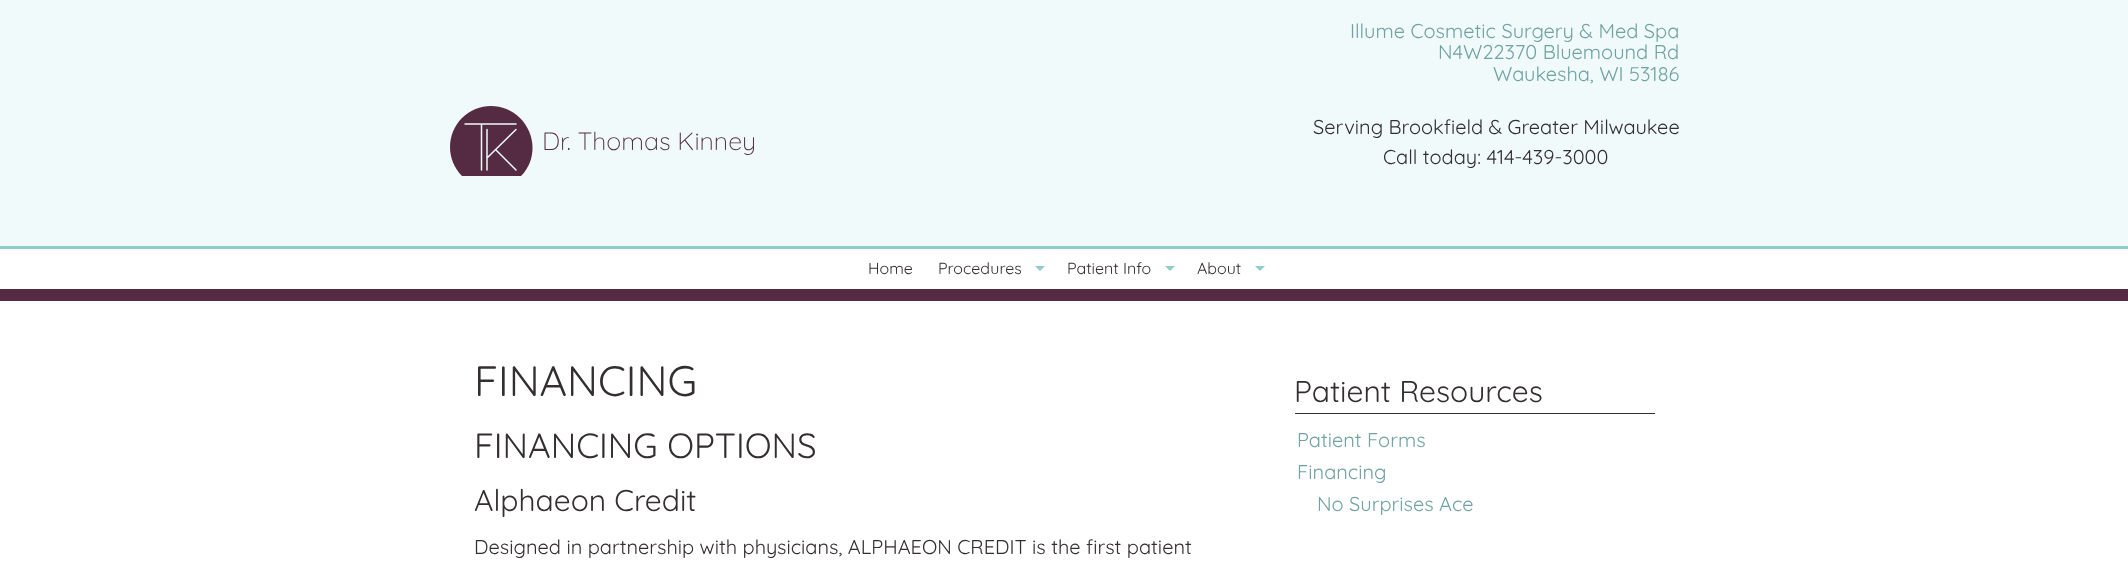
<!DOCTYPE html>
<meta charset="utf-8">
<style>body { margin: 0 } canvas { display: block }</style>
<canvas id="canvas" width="2128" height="561"></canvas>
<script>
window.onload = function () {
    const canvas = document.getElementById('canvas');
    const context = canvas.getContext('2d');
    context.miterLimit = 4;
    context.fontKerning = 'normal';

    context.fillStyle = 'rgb(255, 255, 255)';
    context.fillRect(0, 0, 2128, 561);
    context.fillStyle = 'rgb(240, 250, 250)';
    context.fillRect(0, 0, 2128, 246);
    context.fillStyle = 'rgb(143, 204, 204)';
    context.fillRect(0, 246, 2128, 3);
    context.fillStyle = 'rgb(84, 43, 66)';
    context.beginPath();
    context.moveTo(521, 176);
    context.bezierCurveTo(537, 160, 536, 134, 520, 118);
    context.bezierCurveTo(504, 102, 478, 102, 462, 118);
    context.bezierCurveTo(446, 134, 446, 160, 462, 176);
    context.closePath();
    context.fill();
    context.beginPath();
    context.moveTo(465, 124);
    context.lineTo(516, 124);
    context.moveTo(481.5, 124);
    context.lineTo(481.5, 170);
    context.moveTo(487, 129.5);
    context.lineTo(487, 170);
    context.moveTo(487, 158);
    context.lineTo(516, 129.5);
    context.moveTo(516, 170);
    context.lineTo(495.5, 149.5);
    context.strokeStyle = 'rgb(240, 250, 250)';
    context.lineWidth = 1.5;
    context.lineCap = 'round';
    context.stroke();
    context.fillRect(0, 289, 2128, 12);
    context.fillStyle = 'rgb(143, 204, 204)';
    context.beginPath();
    context.moveTo(1035, 266);
    context.lineTo(1045, 266);
    context.lineTo(1040, 271);
    context.closePath();
    context.fill();
    context.beginPath();
    context.moveTo(1165, 266);
    context.lineTo(1175, 266);
    context.lineTo(1170, 271);
    context.closePath();
    context.fill();
    context.beginPath();
    context.moveTo(1255, 266);
    context.lineTo(1265, 266);
    context.lineTo(1260, 271);
    context.closePath();
    context.fill();
    context.fillStyle = 'rgb(51, 46, 49)';
    context.fillRect(1295, 413, 360, 1);
    context.font = '20px Quicksand';
    context.fillStyle = 'rgb(114, 163, 163)';
    context.fillText('Illume Cosmetic Surgery & Med Spa', 1350, 38);
    context.fillText('N4W22370 Bluemound Rd', 1438, 59);
    context.fillText('Waukesha, WI 53186', 1493, 81);
    context.font = '300 25px Quicksand';
    context.fillStyle = 'rgb(84, 43, 66)';
    context.fillText('Dr. Thomas Kinney', 542, 150);
    context.font = '20px Quicksand';
    context.fillStyle = 'rgb(51, 46, 49)';
    context.fillText('Serving Brookfield & Greater Milwaukee', 1313, 134);
    context.fillText('Call today: 414-439-3000', 1383, 164);
    context.font = '16px Quicksand';
    context.fillText('Home', 868, 274);
    context.fillText('Procedures', 938, 274);
    context.fillText('Patient Info', 1067, 274);
    context.fillText('About', 1197, 274);
    context.font = '42.5px Quicksand';
    context.fillText('FINANCING', 474, 396);
    context.font = '35px Quicksand';
    context.fillText('FINANCING OPTIONS', 474, 458);
    context.font = '30px Quicksand';
    context.fillText('Alphaeon Credit', 474, 511);
    context.font = '20px Quicksand';
    context.fillText('Designed in partnership with physicians, ALPHAEON CREDIT is the first patient', 474, 554);
    context.font = '30px Quicksand';
    context.fillText('Patient Resources', 1294, 402);
    context.font = '20px Quicksand';
    context.fillStyle = 'rgb(114, 163, 163)';
    context.fillText('Patient Forms', 1297, 447);
    context.fillText('Financing', 1297, 479);
    context.fillText('No Surprises Ace', 1317, 511);
};
</script>
